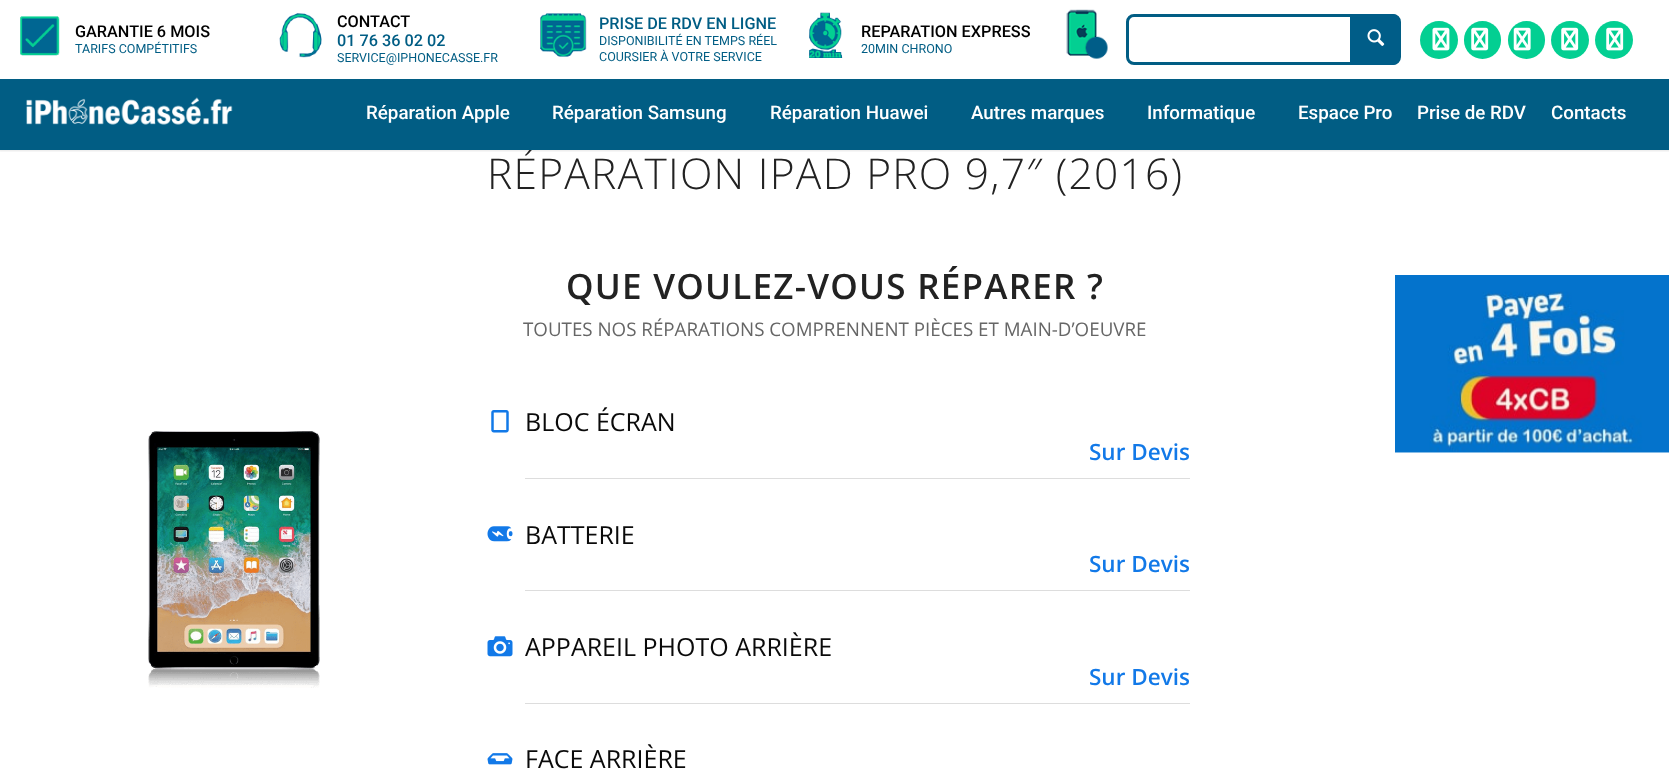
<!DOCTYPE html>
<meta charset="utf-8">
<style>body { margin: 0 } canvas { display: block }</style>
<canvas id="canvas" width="1669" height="782"></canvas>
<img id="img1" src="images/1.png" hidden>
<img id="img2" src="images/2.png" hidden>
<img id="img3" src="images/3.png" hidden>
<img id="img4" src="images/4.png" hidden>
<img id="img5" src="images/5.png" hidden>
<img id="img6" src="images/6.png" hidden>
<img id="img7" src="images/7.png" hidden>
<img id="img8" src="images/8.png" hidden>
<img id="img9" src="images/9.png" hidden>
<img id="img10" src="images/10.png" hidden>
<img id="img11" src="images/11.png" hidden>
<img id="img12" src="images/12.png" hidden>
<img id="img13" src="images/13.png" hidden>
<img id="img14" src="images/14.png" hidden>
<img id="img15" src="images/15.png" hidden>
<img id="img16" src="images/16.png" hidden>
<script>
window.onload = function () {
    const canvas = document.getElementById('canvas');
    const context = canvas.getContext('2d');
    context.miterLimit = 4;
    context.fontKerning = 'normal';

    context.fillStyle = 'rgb(1, 93, 132)';
    context.fillRect(0, 0, 1669, 782);
    context.fillStyle = 'rgb(255, 255, 255)';
    context.fillRect(0, 150, 1669, 632);
    context.save();
    context.beginPath();
    context.rect(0, 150, 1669, 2);
    context.clip();
    context.fillStyle = 'rgba(0, 0, 0, 0.1)';
    context.filter = 'blur(1px)';
    context.beginPath();
    context.rect(-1, -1, 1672, 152);
    context.fill();
    context.filter = 'none';
    context.restore();
    context.fillRect(0, 0, 1669, 79);
    context.drawImage(document.getElementById('img1'), 20, 16, 40, 40);
    context.drawImage(document.getElementById('img2'), 279, 13, 43, 45);
    context.drawImage(document.getElementById('img3'), 540, 13, 47, 44);
    context.drawImage(document.getElementById('img4'), 809, 12, 34, 46);
    context.drawImage(document.getElementById('img5'), 1066, 9, 42, 50);
    context.beginPath();
    context.roundRect(1127.5, 15.5, 272, 48, 6.5);
    context.strokeStyle = 'rgb(1, 93, 132)';
    context.lineWidth = 3;
    context.stroke();
    context.fillStyle = 'rgb(0, 93, 136)';
    context.beginPath();
    context.roundRect(1350, 14, 50, 51, [0, 8, 8, 0]);
    context.fill();
    context.drawImage(document.getElementById('img6'), 1367, 29, 18, 17);
    context.fillStyle = 'rgb(3, 207, 146)';
    context.beginPath();
    context.arc(1439, 40, 19, 0, 2 * Math.PI);
    context.fill();
    context.drawImage(document.getElementById('img7'), 1432, 27, 18, 24);
    context.beginPath();
    context.roundRect(1464, 21, 37, 38, 18.5);
    context.fill();
    context.drawImage(document.getElementById('img8'), 1471, 27, 18, 24);
    context.beginPath();
    context.roundRect(1508, 21, 37, 38, 18.5);
    context.fill();
    context.drawImage(document.getElementById('img9'), 1513, 27, 18, 24);
    context.beginPath();
    context.arc(1570, 40, 19, 0, 2 * Math.PI);
    context.fill();
    context.drawImage(document.getElementById('img8'), 1561, 27, 18, 24);
    context.beginPath();
    context.arc(1614, 40, 19, 0, 2 * Math.PI);
    context.fill();
    context.drawImage(document.getElementById('img8'), 1606, 27, 18, 24);
    context.drawImage(document.getElementById('img10'), 26, 97, 207, 28);
    context.drawImage(document.getElementById('img11'), 148, 431, 172, 257);
    context.drawImage(document.getElementById('img12'), 491, 410, 18, 23);
    context.fillStyle = 'rgb(221, 221, 221)';
    context.fillRect(525, 478, 665, 1);
    context.drawImage(document.getElementById('img13'), 487, 526, 26, 16);
    context.fillRect(525, 590, 665, 1);
    context.drawImage(document.getElementById('img14'), 487, 636, 26, 21);
    context.fillRect(525, 703, 665, 1);
    context.drawImage(document.getElementById('img15'), 487, 753, 26, 12);
    context.drawImage(document.getElementById('img16'), 1395, 275, 274, 178);
    context.font = '500 16.25px Roboto';
    context.fillStyle = 'rgb(0, 0, 0)';
    context.fillText('GARANTIE 6 MOIS', 75, 37);
    context.font = '12.5px Roboto';
    context.fillStyle = 'rgb(0, 93, 132)';
    context.fillText('TARIFS COMPÉTITIFS', 75, 53);
    context.font = '500 16.25px Roboto';
    context.fillStyle = 'rgb(0, 0, 0)';
    context.fillText('CONTACT', 337, 27);
    context.fillStyle = 'rgb(0, 93, 132)';
    context.fillText('01 76 36 02 02', 337, 46);
    context.font = '12.5px Roboto';
    context.fillText('SERVICE@IPHONECASSE.FR', 337, 62);
    context.font = '500 16.25px Roboto';
    context.fillText('PRISE DE RDV EN LIGNE', 599, 29);
    context.font = '12.5px Roboto';
    context.fillText('DISPONIBILITÉ EN TEMPS RÉEL', 599, 45);
    context.fillText('COURSIER À VOTRE SERVICE', 599, 61);
    context.font = '500 16.25px Roboto';
    context.fillStyle = 'rgb(0, 0, 0)';
    context.fillText('REPARATION EXPRESS', 861, 37);
    context.font = '12.5px Roboto';
    context.fillStyle = 'rgb(0, 93, 132)';
    context.fillText('20MIN CHRONO', 861, 53);
    context.font = '500 18.75px Roboto';
    context.fillStyle = 'rgb(255, 255, 255)';
    context.fillText('Réparation Apple', 366, 119);
    context.fillText('Réparation Samsung', 552, 119);
    context.fillText('Réparation Huawei', 770, 119);
    context.fillText('Autres marques', 971, 119);
    context.fillText('Informatique', 1147, 119);
    context.fillText('Espace Pro', 1298, 119);
    context.fillText('Prise de RDV', 1417, 119);
    context.fillText('Contacts', 1551, 119);
    context.letterSpacing = '1.25px';
    context.font = '300 42.5px Open Sans';
    context.fillStyle = 'rgb(34, 34, 34)';
    context.fillText('RÉPARATION IPAD PRO 9,7″ (2016)', 487, 189);
    context.fillStyle = 'rgb(0, 93, 132)';
    context.fillRect(529, 148, 4, 2);
    context.font = '600 35px Open Sans';
    context.fillStyle = 'rgb(34, 34, 34)';
    context.fillText('QUE VOULEZ-VOUS RÉPARER ?', 566, 299);
    context.letterSpacing = '0px';
    context.font = '18.75px Open Sans';
    context.fillStyle = 'rgb(102, 102, 102)';
    context.fillText('TOUTES NOS RÉPARATIONS COMPRENNENT PIÈCES ET MAIN-D’OEUVRE', 523, 336);
    context.font = '25px Open Sans';
    context.fillStyle = 'rgb(10, 10, 10)';
    context.fillText('BLOC ÉCRAN', 525, 431);
    context.font = '600 22.5px Open Sans';
    context.fillStyle = 'rgb(18, 121, 232)';
    context.fillText('Sur Devis', 1089, 460);
    context.font = '25px Open Sans';
    context.fillStyle = 'rgb(10, 10, 10)';
    context.fillText('BATTERIE', 525, 544);
    context.font = '600 22.5px Open Sans';
    context.fillStyle = 'rgb(18, 121, 232)';
    context.fillText('Sur Devis', 1089, 572);
    context.font = '25px Open Sans';
    context.fillStyle = 'rgb(10, 10, 10)';
    context.fillText('APPAREIL PHOTO ARRIÈRE', 525, 656);
    context.font = '600 22.5px Open Sans';
    context.fillStyle = 'rgb(18, 121, 232)';
    context.fillText('Sur Devis', 1089, 685);
    context.font = '25px Open Sans';
    context.fillStyle = 'rgb(10, 10, 10)';
    context.fillText('FACE ARRIÈRE', 525, 768);
};
</script>
